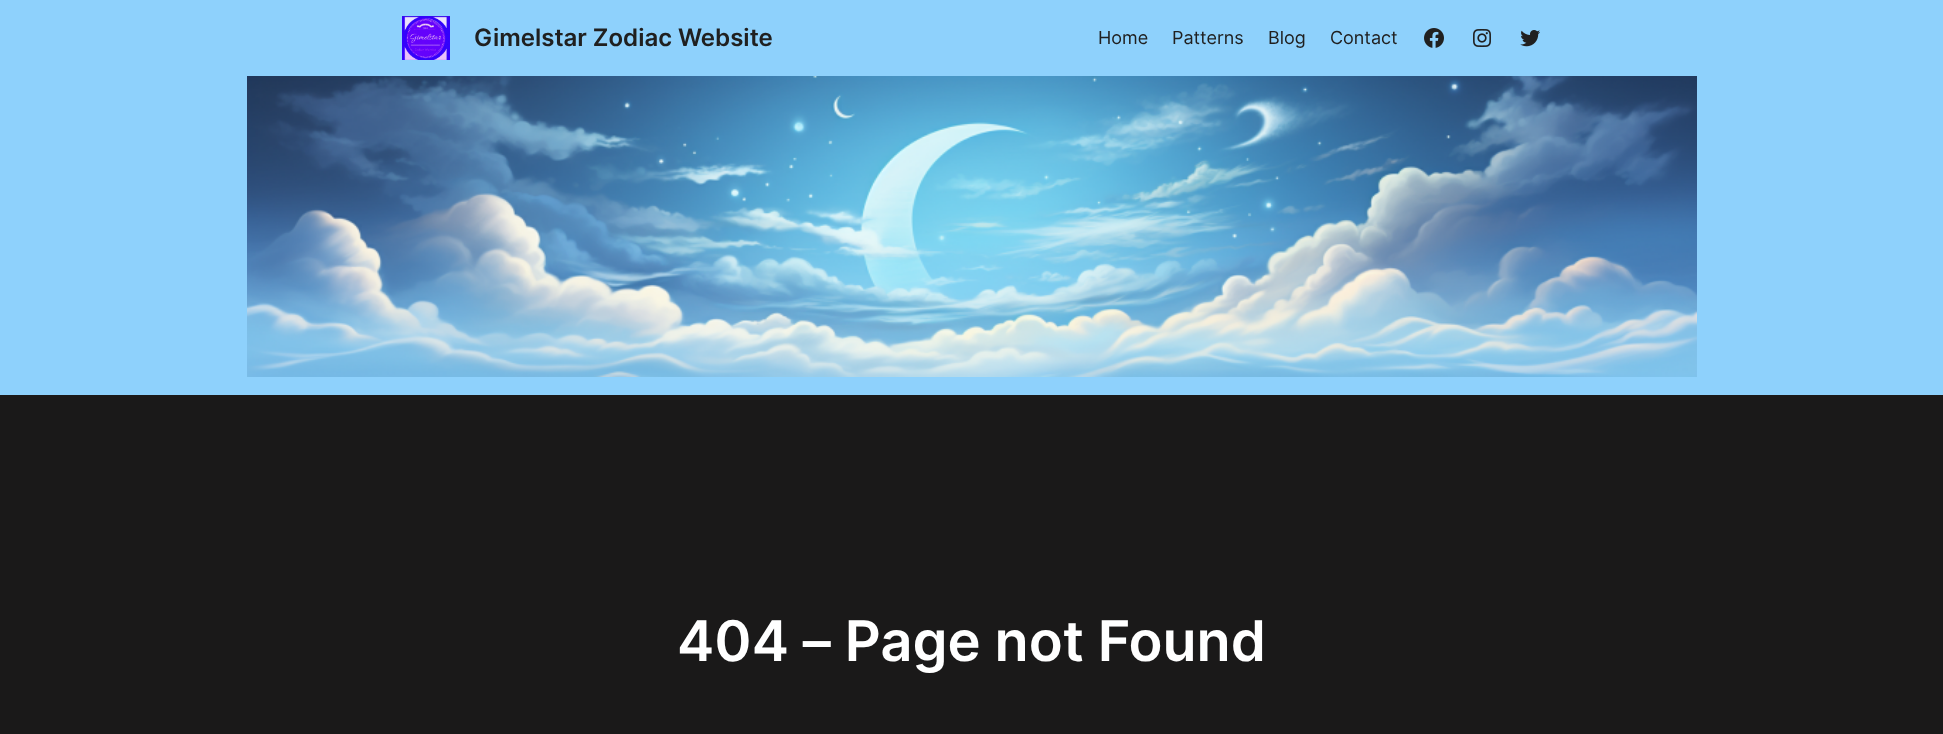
<!DOCTYPE html>
<meta charset="utf-8">
<style>body { margin: 0 } canvas { display: block }</style>
<canvas id="canvas" width="1943" height="734"></canvas>
<img id="img1" src="images/1.png" hidden>
<img id="img2" src="images/2.png" hidden>
<img id="img3" src="images/3.png" hidden>
<img id="img4" src="images/4.png" hidden>
<img id="img5" src="images/5.png" hidden>
<script>
window.onload = function () {
    const canvas = document.getElementById('canvas');
    const context = canvas.getContext('2d');
    context.miterLimit = 4;
    context.fontKerning = 'normal';

    context.fillStyle = 'rgb(142, 209, 252)';
    context.fillRect(0, 0, 1943, 734);
    context.drawImage(document.getElementById('img1'), 402, 16, 48, 44);
    context.drawImage(document.getElementById('img2'), 1424, 28, 20, 20);
    context.drawImage(document.getElementById('img3'), 1473, 29, 18, 18);
    context.drawImage(document.getElementById('img4'), 1520, 30, 20, 17);
    context.drawImage(document.getElementById('img5'), 247, 76, 1450, 301);
    context.fillStyle = 'rgb(26, 25, 25)';
    context.fillRect(0, 395, 1943, 339);
    context.font = '600 24px Inter';
    context.fillStyle = 'rgb(32, 32, 32)';
    context.fillText('Gimelstar Zodiac Website', 474, 46);
    context.font = '18px Inter';
    context.fillText('Home', 1098, 44);
    context.fillText('Patterns', 1172, 44);
    context.fillText('Blog', 1268, 44);
    context.fillText('Contact', 1330, 44);
    context.font = '600 56px Inter';
    context.fillStyle = 'rgb(255, 255, 255)';
    context.fillText('404 – Page not Found', 677, 661);
};
</script>
